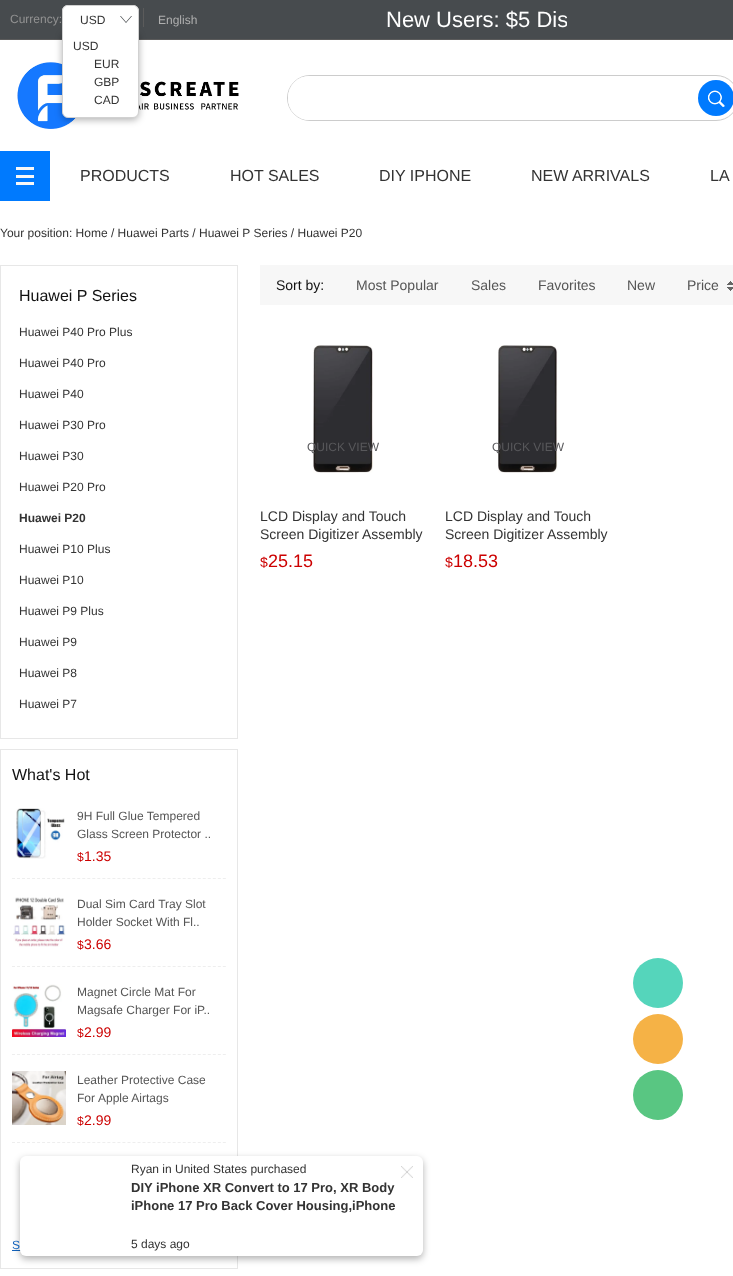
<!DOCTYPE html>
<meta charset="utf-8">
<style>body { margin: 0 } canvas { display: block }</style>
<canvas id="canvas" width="733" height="1276"></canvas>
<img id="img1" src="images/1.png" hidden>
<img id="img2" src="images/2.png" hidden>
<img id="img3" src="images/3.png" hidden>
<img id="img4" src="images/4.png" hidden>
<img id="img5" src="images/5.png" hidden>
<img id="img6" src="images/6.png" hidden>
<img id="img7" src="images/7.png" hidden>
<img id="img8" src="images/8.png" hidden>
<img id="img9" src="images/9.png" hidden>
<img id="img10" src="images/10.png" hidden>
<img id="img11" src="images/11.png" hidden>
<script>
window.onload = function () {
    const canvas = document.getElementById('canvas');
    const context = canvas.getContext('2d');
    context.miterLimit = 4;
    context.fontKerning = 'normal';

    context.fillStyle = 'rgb(255, 255, 255)';
    context.fillRect(0, 0, 733, 1276);
    context.fillStyle = 'rgb(71, 75, 78)';
    context.fillRect(0, 0, 733, 39);
    context.fillStyle = 'rgb(91, 91, 91)';
    context.fillRect(0, 39, 733, 1);
    context.drawImage(document.getElementById('img1'), 17, 62, 222, 67);
    context.fillStyle = 'rgba(0, 0, 0, 0.3)';
    context.filter = 'blur(3.5px)';
    context.beginPath();
    context.roundRect(62, 33, 77, 87, 6);
    context.fill();
    context.filter = 'none';
    context.fillStyle = 'rgb(255, 255, 255)';
    context.beginPath();
    context.roundRect(62.5, 31.5, 76, 86, [0, 0, 5.5, 5.5]);
    context.fill();
    context.strokeStyle = 'rgb(209, 209, 209)';
    context.stroke();
    context.beginPath();
    context.roundRect(62, 5, 77, 29, [6, 6, 0, 0]);
    context.fill();
    context.fillStyle = 'rgb(209, 209, 209)';
    context.beginPath();
    context.moveTo(68, 5);
    context.lineTo(133, 5);
    context.bezierCurveTo(136, 5, 139, 8, 139, 11);
    context.lineTo(139, 34);
    context.lineTo(62, 34);
    context.lineTo(62, 11);
    context.bezierCurveTo(62, 8, 65, 5, 68, 5);
    context.closePath();
    context.moveTo(68, 6);
    context.lineTo(133, 6);
    context.bezierCurveTo(136, 6, 138, 8, 138, 11);
    context.lineTo(138, 34);
    context.lineTo(63, 34);
    context.lineTo(63, 11);
    context.bezierCurveTo(63, 8, 65, 6, 68, 6);
    context.closePath();
    context.fill('evenodd');
    context.fillStyle = 'rgb(71, 75, 78)';
    context.beginPath();
    context.moveTo(120, 16);
    context.lineTo(132, 16);
    context.lineTo(126, 23);
    context.closePath();
    context.fill();
    context.fillStyle = 'rgb(255, 255, 255)';
    context.beginPath();
    context.moveTo(120, 15);
    context.lineTo(132, 15);
    context.lineTo(126, 22);
    context.closePath();
    context.fill();
    context.fillStyle = 'rgb(91, 91, 91)';
    context.fillRect(143, 8, 1, 19);
    context.beginPath();
    context.roundRect(287.5, 75.5, 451, 45, 22.5);
    context.strokeStyle = 'rgb(204, 204, 204)';
    context.stroke();
    context.fillStyle = 'rgb(255, 255, 255)';
    context.beginPath();
    context.roundRect(288, 76, 405, 44, [21, 0, 0, 21]);
    context.fill();
    context.fillStyle = 'rgb(0, 122, 254)';
    context.beginPath();
    context.arc(716, 98, 18, 0, 2 * Math.PI);
    context.fill();
    context.drawImage(document.getElementById('img2'), 708, 90, 17, 17);
    context.fillRect(0, 151, 50, 50);
    context.drawImage(document.getElementById('img3'), 16, 167, 18, 18);
    context.strokeStyle = 'rgb(231, 231, 231)';
    context.strokeRect(0.5, 265.5, 237, 473);
    context.strokeRect(0.5, 749.5, 237, 519);
    context.drawImage(document.getElementById('img4'), 16, 808, 49, 51);
    context.beginPath();
    context.moveTo(12, 878.5);
    context.lineTo(226, 878.5);
    context.strokeStyle = 'rgb(238, 238, 238)';
    context.setLineDash([3, 2.02]);
    context.stroke();
    context.drawImage(document.getElementById('img5'), 13, 897, 53, 50);
    context.beginPath();
    context.moveTo(12, 966.5);
    context.lineTo(226, 966.5);
    context.stroke();
    context.drawImage(document.getElementById('img6'), 12, 984, 54, 53);
    context.beginPath();
    context.moveTo(12, 1054.5);
    context.lineTo(226, 1054.5);
    context.stroke();
    context.drawImage(document.getElementById('img7'), 12, 1071, 54, 54);
    context.beginPath();
    context.moveTo(12, 1142.5);
    context.lineTo(226, 1142.5);
    context.stroke();
    context.fillStyle = 'rgb(19, 99, 188)';
    context.fillRect(12, 1250, 9, 1);
    context.fillStyle = 'rgb(247, 247, 247)';
    context.fillRect(260, 265, 473, 40);
    context.drawImage(document.getElementById('img8'), 727, 281, 6, 10);
    context.drawImage(document.getElementById('img9'), 313, 345, 60, 128);
    context.drawImage(document.getElementById('img10'), 498, 345, 60, 128);
    context.fillStyle = 'rgb(85, 213, 187)';
    context.beginPath();
    context.arc(658, 983, 25, 0, 2 * Math.PI);
    context.fill();
    context.fillStyle = 'rgb(245, 178, 70)';
    context.beginPath();
    context.arc(658, 1039, 25, 0, 2 * Math.PI);
    context.fill();
    context.fillStyle = 'rgb(89, 198, 130)';
    context.beginPath();
    context.arc(658, 1095, 25, 0, 2 * Math.PI);
    context.fill();
    context.fillStyle = 'rgba(0, 0, 0, 0.3)';
    context.filter = 'blur(3.5px)';
    context.beginPath();
    context.roundRect(20, 1159, 403, 100, 6);
    context.fill();
    context.filter = 'none';
    context.fillStyle = 'rgb(255, 255, 255)';
    context.beginPath();
    context.roundRect(20, 1156, 403, 100, 6);
    context.fill();
    context.drawImage(document.getElementById('img11'), 401, 1166, 12, 12);
    context.font = '12px Liberation Sans';
    context.fillStyle = 'rgb(146, 146, 146)';
    context.fillText('Currency:', 10, 23);
    context.fillStyle = 'rgb(51, 51, 51)';
    context.fillText('USD', 80, 24);
    context.fillText('USD', 73, 50);
    context.fillText('EUR', 94, 68);
    context.fillText('GBP', 94, 86);
    context.fillText('CAD', 94, 104);
    context.fillStyle = 'rgb(175, 175, 175)';
    context.fillText('English', 158, 24);
    context.save();
    context.beginPath();
    context.rect(200, 0, 367, 39);
    context.clip();
    context.font = '22px Liberation Sans';
    context.fillStyle = 'rgb(255, 255, 255)';
    context.fillText('New Users: $5 Dis', 386, 27);
    context.restore();
    context.font = '16px Liberation Sans';
    context.fillStyle = 'rgb(51, 51, 51)';
    context.fillText('PRODUCTS', 80, 181);
    context.fillText('HOT SALES', 230, 181);
    context.fillText('DIY IPHONE', 379, 181);
    context.fillText('NEW ARRIVALS', 531, 181);
    context.fillText('LA', 710, 181);
    context.font = '12px Liberation Sans';
    context.fillText('Your position: Home / Huawei Parts / Huawei P Series / Huawei P20', 0, 237);
    context.font = '16px Liberation Sans';
    context.fillStyle = 'rgb(17, 17, 17)';
    context.fillText('Huawei P Series', 19, 301);
    context.font = '12px Liberation Sans';
    context.fillStyle = 'rgb(51, 51, 51)';
    context.fillText('Huawei P40 Pro Plus', 19, 336);
    context.fillText('Huawei P40 Pro', 19, 367);
    context.fillText('Huawei P40', 19, 398);
    context.fillText('Huawei P30 Pro', 19, 429);
    context.fillText('Huawei P30', 19, 460);
    context.fillText('Huawei P20 Pro', 19, 491);
    context.font = 'bold 12px Liberation Sans';
    context.fillText('Huawei P20', 19, 522);
    context.font = '12px Liberation Sans';
    context.fillText('Huawei P10 Plus', 19, 553);
    context.fillText('Huawei P10', 19, 584);
    context.fillText('Huawei P9 Plus', 19, 615);
    context.fillText('Huawei P9', 19, 646);
    context.fillText('Huawei P8', 19, 677);
    context.fillText('Huawei P7', 19, 708);
    context.font = '16px Liberation Sans';
    context.fillStyle = 'rgb(17, 17, 17)';
    context.fillText('What\'s Hot', 12, 780);
    context.font = '12px Liberation Sans';
    context.fillStyle = 'rgb(85, 85, 85)';
    context.fillText('9H Full Glue Tempered', 77, 820);
    context.fillText('Glass Screen Protector ..', 77, 838);
    context.fillStyle = 'rgb(204, 0, 0)';
    context.fillText('$', 77, 861);
    context.font = '14px Liberation Sans';
    context.fillText('1.35', 84, 861);
    context.font = '12px Liberation Sans';
    context.fillStyle = 'rgb(85, 85, 85)';
    context.fillText('Dual Sim Card Tray Slot', 77, 908);
    context.fillText('Holder Socket With Fl..', 77, 926);
    context.fillStyle = 'rgb(204, 0, 0)';
    context.fillText('$', 77, 949);
    context.font = '14px Liberation Sans';
    context.fillText('3.66', 84, 949);
    context.font = '12px Liberation Sans';
    context.fillStyle = 'rgb(85, 85, 85)';
    context.fillText('Magnet Circle Mat For', 77, 996);
    context.fillText('Magsafe Charger For iP..', 77, 1014);
    context.fillStyle = 'rgb(204, 0, 0)';
    context.fillText('$', 77, 1037);
    context.font = '14px Liberation Sans';
    context.fillText('2.99', 84, 1037);
    context.font = '12px Liberation Sans';
    context.fillStyle = 'rgb(85, 85, 85)';
    context.fillText('Leather Protective Case', 77, 1084);
    context.fillText('For', 77, 1102);
    context.fillText('Apple Airtags', 98, 1102);
    context.fillStyle = 'rgb(204, 0, 0)';
    context.fillText('$', 77, 1125);
    context.font = '14px Liberation Sans';
    context.fillText('2.99', 84, 1125);
    context.font = '12px Liberation Sans';
    context.fillStyle = 'rgb(19, 99, 188)';
    context.fillText('S', 12, 1249);
    context.font = '14px Liberation Sans';
    context.fillStyle = 'rgb(17, 17, 17)';
    context.fillText('Sort by:', 276, 290);
    context.fillStyle = 'rgb(85, 85, 85)';
    context.fillText('Most Popular', 356, 290);
    context.fillText('Sales', 471, 290);
    context.fillText('Favorites', 538, 290);
    context.fillText('New', 627, 290);
    context.fillText('Price', 687, 290);
    context.font = '12px Liberation Sans';
    context.fillStyle = 'rgb(88, 88, 91)';
    context.fillText('QUICK VIEW', 307, 451);
    context.font = '14px Liberation Sans';
    context.fillStyle = 'rgb(51, 51, 51)';
    context.fillText('LCD Display and Touch', 260, 521);
    context.fillText('Screen Digitizer Assembly', 260, 539);
    context.fillStyle = 'rgb(204, 0, 0)';
    context.fillText('$', 260, 567);
    context.font = '18px Liberation Sans';
    context.fillText('25.15', 268, 567);
    context.font = '12px Liberation Sans';
    context.fillStyle = 'rgb(88, 88, 91)';
    context.fillText('QUICK VIEW', 492, 451);
    context.font = '14px Liberation Sans';
    context.fillStyle = 'rgb(51, 51, 51)';
    context.fillText('LCD Display and Touch', 445, 521);
    context.fillText('Screen Digitizer Assembly', 445, 539);
    context.fillStyle = 'rgb(204, 0, 0)';
    context.fillText('$', 445, 567);
    context.font = '18px Liberation Sans';
    context.fillText('18.53', 453, 567);
    context.font = '12px Liberation Sans';
    context.fillStyle = 'rgb(51, 51, 51)';
    context.fillText('Ryan in United States purchased', 131, 1173);
    context.font = 'bold 13px Liberation Sans';
    context.fillText('DIY iPhone XR Convert to 17 Pro, XR Body', 131, 1192);
    context.fillText('iPhone 17 Pro Back Cover Housing,iPhone', 131, 1210);
    context.font = '12px Liberation Sans';
    context.fillText('5 days ago', 131, 1248);
};
</script>
